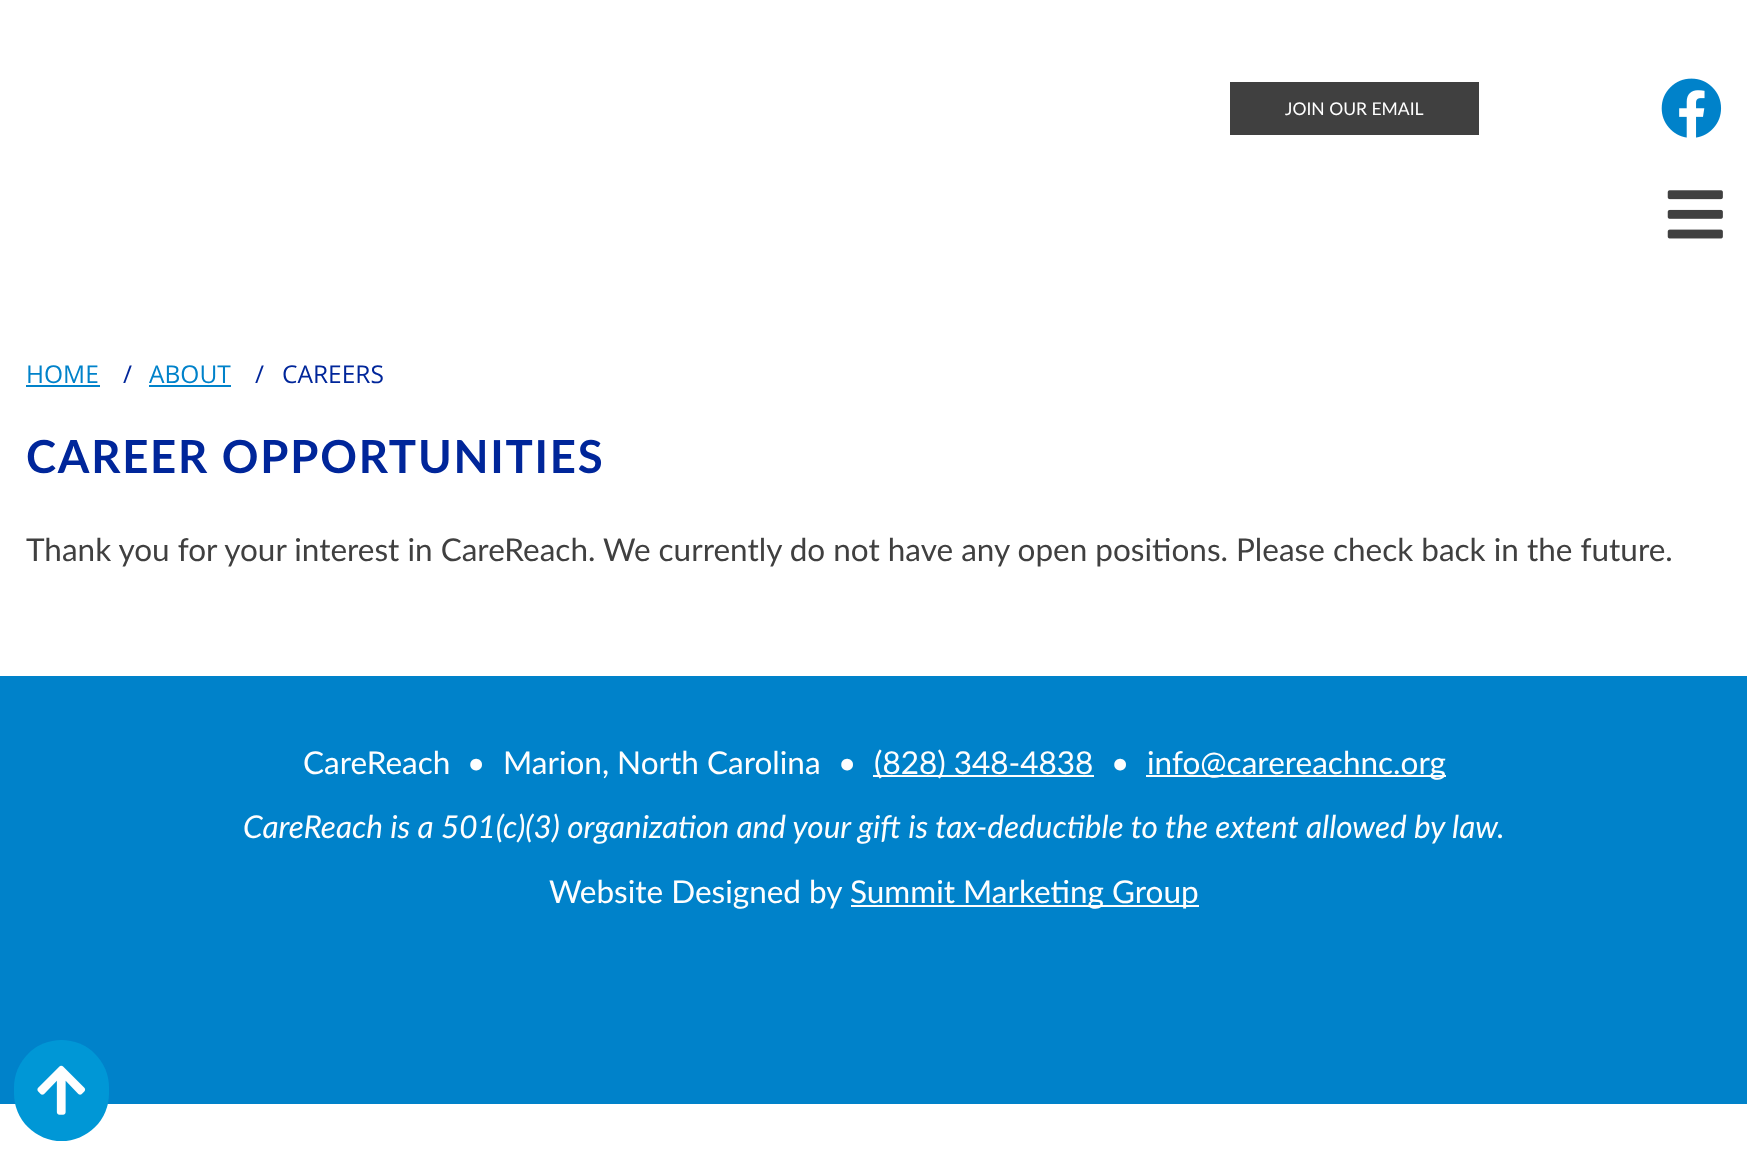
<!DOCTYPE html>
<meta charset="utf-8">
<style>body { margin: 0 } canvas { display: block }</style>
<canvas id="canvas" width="1747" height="1168"></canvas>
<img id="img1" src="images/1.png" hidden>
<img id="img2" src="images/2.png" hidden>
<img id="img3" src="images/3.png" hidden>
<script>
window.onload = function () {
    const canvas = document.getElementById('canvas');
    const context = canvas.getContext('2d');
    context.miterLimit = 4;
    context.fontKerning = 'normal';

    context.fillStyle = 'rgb(255, 255, 255)';
    context.fillRect(0, 0, 1747, 1168);
    context.fillStyle = 'rgb(64, 64, 64)';
    context.fillRect(1230, 82, 249, 53);
    context.drawImage(document.getElementById('img1'), 1661, 78, 61, 60);
    context.drawImage(document.getElementById('img2'), 1667, 190, 56, 49);
    context.fillStyle = 'rgb(0, 130, 202)';
    context.fillRect(26, 385, 74, 2);
    context.fillRect(149, 385, 82, 2);
    context.fillRect(0, 676, 1747, 428);
    context.fillStyle = 'rgb(254, 254, 254)';
    context.fillRect(873, 775, 221, 2);
    context.fillRect(1146, 775, 300, 2);
    context.fillRect(851, 905, 348, 2);
    context.fillStyle = 'rgb(0, 151, 214)';
    context.beginPath();
    context.roundRect(14, 1040, 95, 101, 47.5);
    context.fill();
    context.drawImage(document.getElementById('img3'), 37, 1065, 49, 50);
    context.font = '17.5px Lato';
    context.fillStyle = 'rgb(254, 254, 254)';
    context.fillText('JOIN OUR EMAIL', 1285, 115);
    context.font = '24.5px Open Sans';
    context.fillStyle = 'rgb(0, 130, 202)';
    context.fillText('HOME', 26, 383);
    context.fillStyle = 'rgb(0, 38, 154)';
    context.fillText('/', 123, 383);
    context.fillStyle = 'rgb(0, 130, 202)';
    context.fillText('ABOUT', 149, 383);
    context.fillStyle = 'rgb(0, 38, 154)';
    context.fillText('/', 255, 383);
    context.fillText('CAREERS', 282, 383);
    context.letterSpacing = '1.75px';
    context.font = 'bold 45.5px Lato';
    context.fillText('CAREER OPPORTUNITIES', 26, 473);
    context.letterSpacing = '0px';
    context.font = '31.5px Lato';
    context.fillStyle = 'rgb(64, 64, 64)';
    context.fillText('Thank you for your interest in CareReach. We currently do not have any open positions. Please check back in the future.', 26, 561);
    context.fillStyle = 'rgb(254, 254, 254)';
    context.fillText('CareReach', 303, 774);
    context.fillText('•', 467, 774);
    context.fillText('Marion, North Carolina', 503, 774);
    context.fillText('•', 838, 774);
    context.fillText('(828) 348-4838', 874, 774);
    context.fillText('•', 1111, 774);
    context.fillText('info@carereachnc.org', 1147, 774);
    context.font = 'italic 31.5px Lato';
    context.fillText('CareReach is a 501(c)(3) organization and your gift is tax-deductible to the extent allowed by law.', 243, 838);
    context.font = '31.5px Lato';
    context.fillText('Website Designed by', 549, 903);
    context.fillText('Summit Marketing Group', 850, 903);
};
</script>
